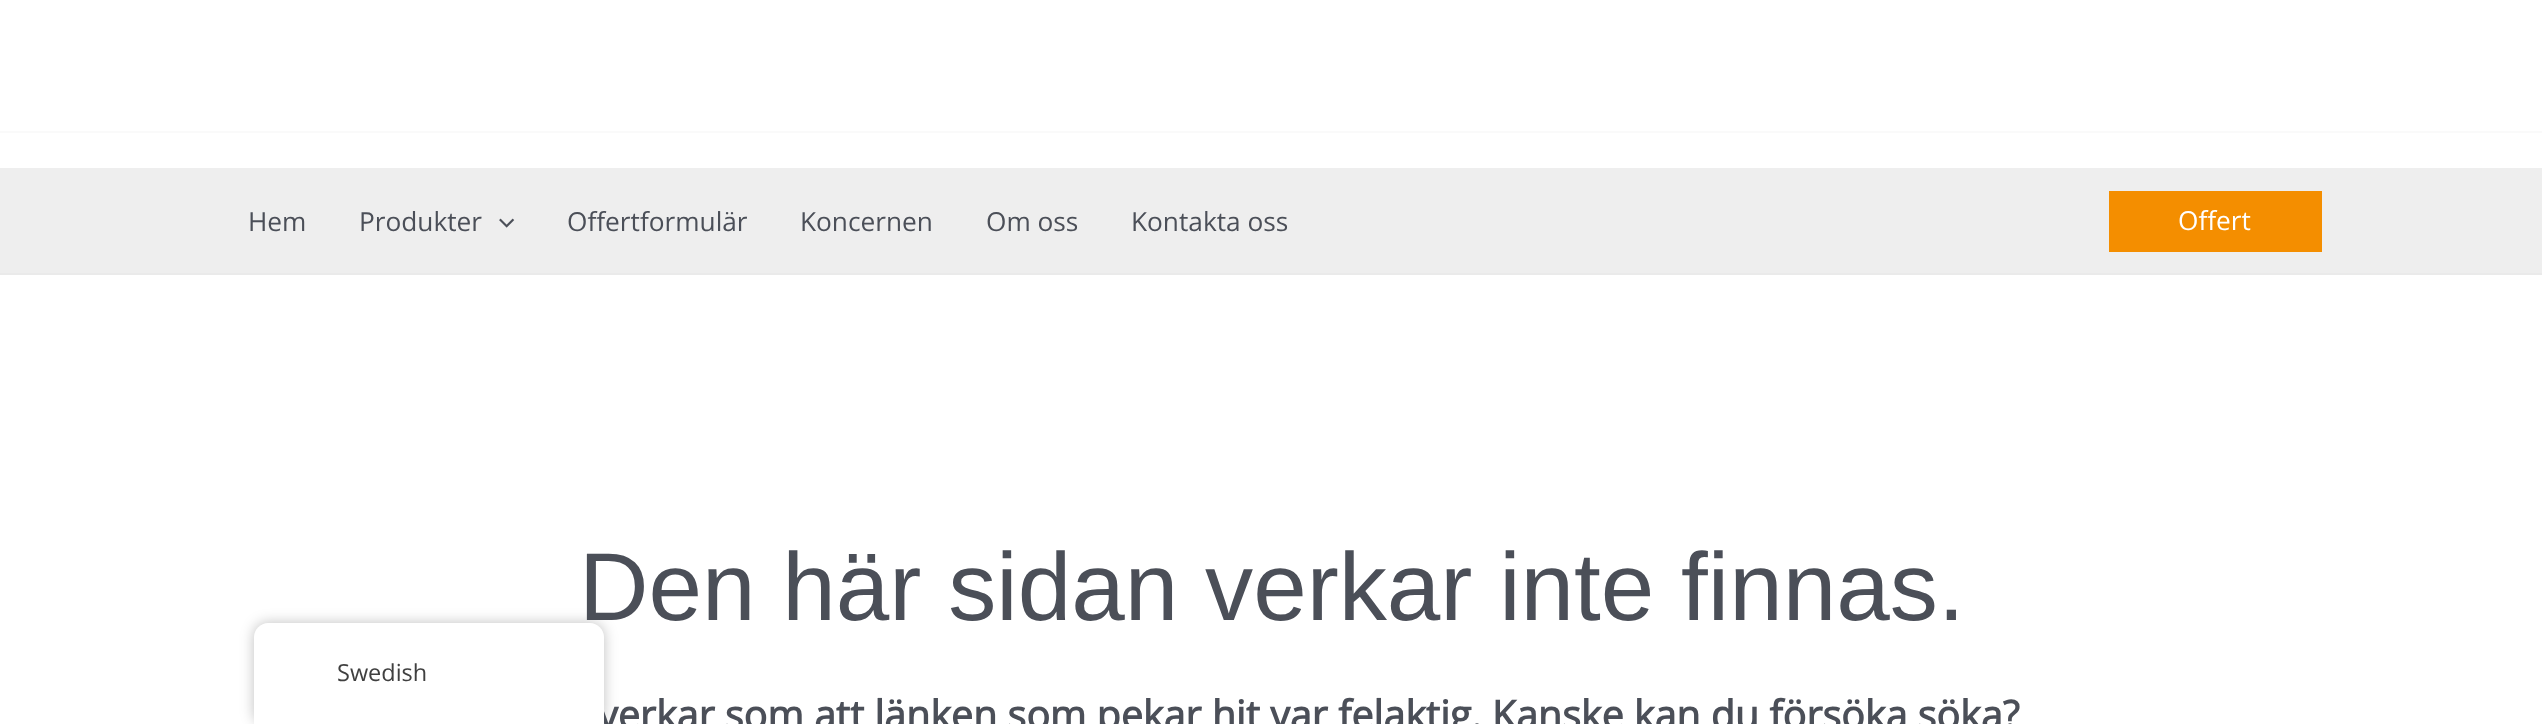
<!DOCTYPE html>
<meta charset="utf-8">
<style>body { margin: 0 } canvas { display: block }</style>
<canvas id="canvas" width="2542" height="724"></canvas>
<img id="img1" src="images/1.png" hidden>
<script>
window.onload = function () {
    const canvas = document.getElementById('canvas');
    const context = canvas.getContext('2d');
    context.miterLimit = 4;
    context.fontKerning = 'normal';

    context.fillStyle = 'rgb(255, 255, 255)';
    context.fillRect(0, 0, 2542, 724);
    context.fillStyle = 'rgb(250, 250, 250)';
    context.fillRect(0, 131, 2542, 2);
    context.fillStyle = 'rgb(238, 238, 238)';
    context.fillRect(0, 168, 2542, 105);
    context.fillStyle = 'rgb(234, 234, 234)';
    context.fillRect(0, 273, 2542, 2);
    context.drawImage(document.getElementById('img1'), 499, 218, 16, 10);
    context.fillStyle = 'rgb(244, 142, 0)';
    context.fillRect(2109, 191, 213, 61);
    context.fillStyle = 'rgba(0, 0, 0, 0.25)';
    context.filter = 'blur(7px)';
    context.beginPath();
    context.roundRect(254, 623, 350, 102, 14);
    context.fill();
    context.filter = 'none';
    context.font = '26.25px Open Sans';
    context.fillStyle = 'rgb(75, 79, 88)';
    context.fillText('Hem', 248, 231);
    context.fillText('Produkter', 359, 231);
    context.fillText('Offertformulär', 567, 231);
    context.fillText('Koncernen', 800, 231);
    context.fillText('Om oss', 986, 231);
    context.fillText('Kontakta oss', 1131, 231);
    context.fillStyle = 'rgb(255, 255, 255)';
    context.fillText('Offert', 2178, 230);
    context.font = '96.25px Liberation Sans';
    context.fillStyle = 'rgb(75, 79, 88)';
    context.fillText('Den här sidan verkar inte finnas.', 579, 620);
    context.font = 'bold 39.4px Open Sans';
    context.fillText('verkar som att länken som pekar hit var felaktig. Kanske kan du försöka söka?', 598, 729);
    context.fillStyle = 'rgb(255, 255, 255)';
    context.beginPath();
    context.moveTo(268, 623);
    context.lineTo(590, 623);
    context.bezierCurveTo(597.5, 623, 604, 629.5, 604, 637);
    context.lineTo(604, 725);
    context.lineTo(254, 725);
    context.lineTo(254, 637);
    context.bezierCurveTo(254, 629.5, 260.5, 623, 268, 623);
    context.closePath();
    context.fill();
    context.font = '23.5px Open Sans';
    context.fillStyle = 'rgb(64, 64, 64)';
    context.fillText('Swedish', 337, 681);
};
</script>
